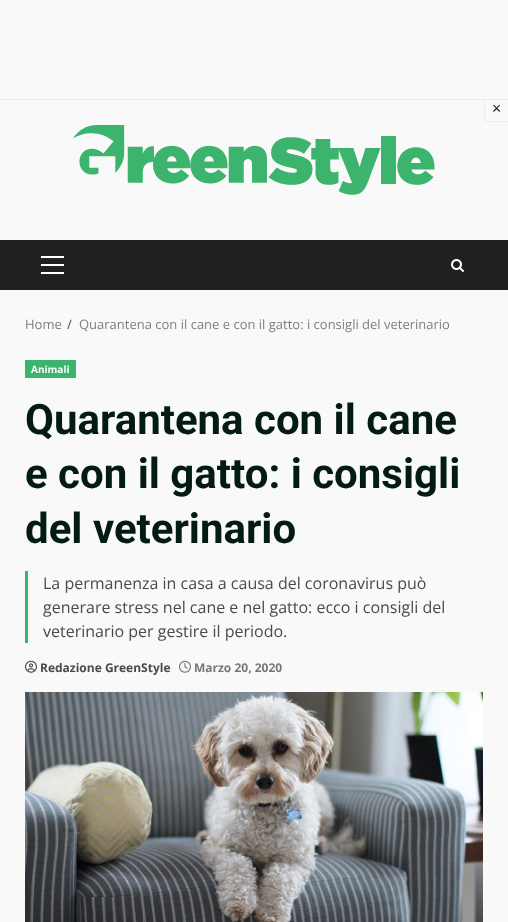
<!DOCTYPE html>
<meta charset="utf-8">
<style>body { margin: 0 } canvas { display: block }</style>
<canvas id="canvas" width="508" height="922"></canvas>
<img id="img1" src="images/1.png" hidden>
<img id="img2" src="images/2.png" hidden>
<img id="img3" src="images/3.png" hidden>
<img id="img4" src="images/4.png" hidden>
<img id="img5" src="images/5.png" hidden>
<script>
window.onload = function () {
    const canvas = document.getElementById('canvas');
    const context = canvas.getContext('2d');
    context.miterLimit = 4;
    context.fontKerning = 'normal';

    context.fillStyle = 'rgb(249, 249, 249)';
    context.fillRect(0, 0, 508, 922);
    context.fillStyle = 'rgb(232, 238, 249)';
    context.beginPath();
    context.moveTo(484, 98);
    context.lineTo(508, 98);
    context.lineTo(508, 122);
    context.lineTo(487, 122);
    context.bezierCurveTo(485.5, 122, 484, 120.5, 484, 119);
    context.closePath();
    context.moveTo(485, 98);
    context.lineTo(508, 98);
    context.lineTo(508, 121);
    context.lineTo(487, 121);
    context.bezierCurveTo(486, 121, 485, 120, 485, 119);
    context.closePath();
    context.fill('evenodd');
    context.fillStyle = 'rgb(250, 250, 250)';
    context.fillRect(484, 98, 1, 1);
    context.fillStyle = 'rgb(232, 238, 249)';
    context.fillRect(0, 99, 508, 1);
    context.drawImage(document.getElementById('img1'), 73, 125, 362, 70);
    context.fillStyle = 'rgb(32, 32, 32)';
    context.fillRect(0, 240, 508, 50);
    context.fillStyle = 'rgb(255, 255, 255)';
    context.fillRect(41, 264, 23, 2);
    context.fillRect(41, 256, 23, 2);
    context.fillRect(41, 272, 23, 2);
    context.drawImage(document.getElementById('img2'), 451, 259, 13, 13);
    context.fillStyle = 'rgb(60, 180, 110)';
    context.fillRect(25, 360, 51, 18);
    context.fillRect(25, 571, 3, 72);
    context.drawImage(document.getElementById('img3'), 25, 660, 12, 13);
    context.drawImage(document.getElementById('img4'), 179, 660, 12, 13);
    context.drawImage(document.getElementById('img5'), 25, 692, 458, 230);
    context.font = '16px Open Sans';
    context.fillStyle = 'rgb(17, 34, 51)';
    context.fillText('×', 492, 114);
    context.font = '13px Open Sans';
    context.fillStyle = 'rgb(127, 127, 127)';
    context.fillText('Home', 25, 329);
    context.fillStyle = 'rgb(74, 74, 74)';
    context.fillText('/', 67, 329);
    context.fillStyle = 'rgb(127, 127, 127)';
    context.fillText('Quarantena con il cane e con il gatto: i consigli del veterinario', 79, 329);
    context.font = 'bold 10px Open Sans';
    context.fillStyle = 'rgb(255, 255, 255)';
    context.fillText('Animali', 31, 373);
    context.font = 'bold 42px Roboto';
    context.fillStyle = 'rgb(3, 27, 17)';
    context.fillText('Quarantena con il cane', 25, 434);
    context.fillText('e con il gatto: i consigli', 25, 488);
    context.fillText('del veterinario', 25, 543);
    context.font = '16px Open Sans';
    context.fillStyle = 'rgb(74, 74, 74)';
    context.fillText('La permanenza in casa a causa del coronavirus può', 43, 589);
    context.fillText('generare stress nel cane e nel gatto: ecco i consigli del', 43, 613);
    context.fillText('veterinario per gestire il periodo.', 43, 637);
    context.font = 'bold 12px Open Sans';
    context.fillText('Redazione GreenStyle', 40, 672);
    context.fillStyle = 'rgb(118, 118, 118)';
    context.fillText('Marzo 20, 2020', 194, 672);
};
</script>
